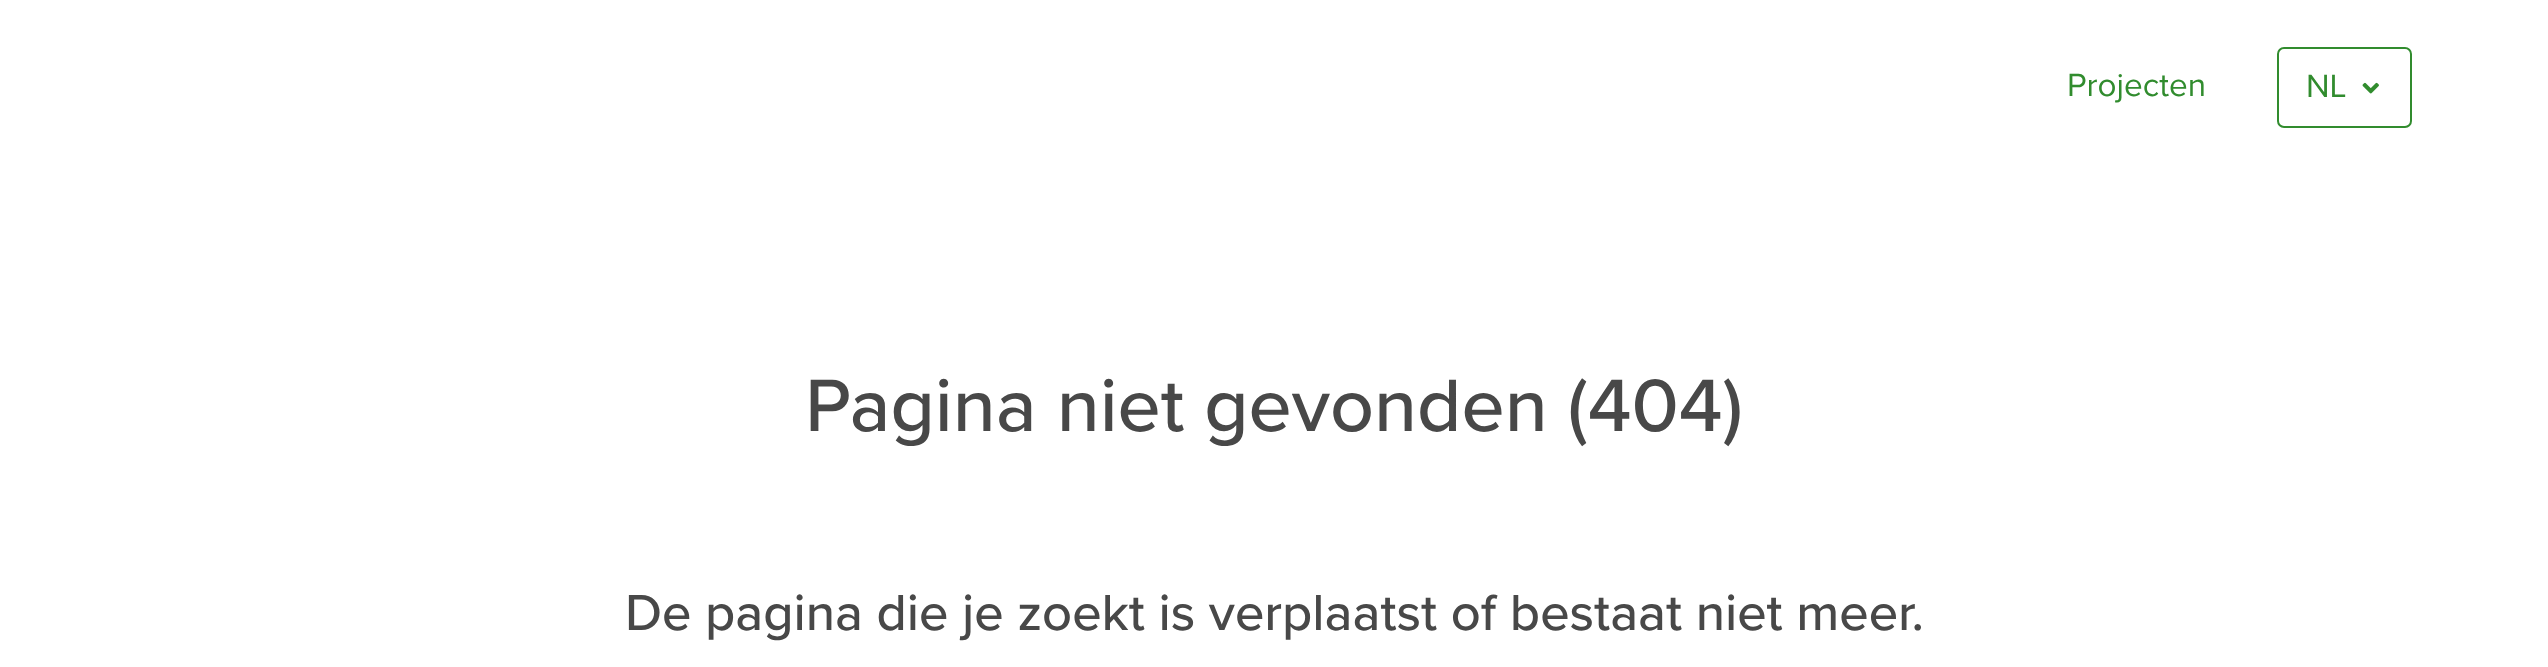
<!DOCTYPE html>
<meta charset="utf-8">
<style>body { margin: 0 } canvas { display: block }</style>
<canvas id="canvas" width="2548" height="667"></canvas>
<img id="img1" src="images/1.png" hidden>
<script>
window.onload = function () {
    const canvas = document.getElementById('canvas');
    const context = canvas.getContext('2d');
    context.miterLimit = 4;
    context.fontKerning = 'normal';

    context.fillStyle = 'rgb(255, 255, 255)';
    context.fillRect(0, 0, 2548, 667);
    context.beginPath();
    context.roundRect(2278, 48, 133, 79, 6);
    context.strokeStyle = 'rgb(49, 140, 46)';
    context.lineWidth = 2;
    context.stroke();
    context.drawImage(document.getElementById('img1'), 2362, 82, 17, 12);
    context.font = '33.25px Proxima Nova';
    context.fillStyle = 'rgb(49, 140, 46)';
    context.fillText('Projecten', 2067, 96);
    context.fillText('NL', 2306, 97);
    context.font = '500 77px Proxima Nova';
    context.fillStyle = 'rgb(72, 72, 72)';
    context.fillText('Pagina niet gevonden (404)', 805, 431);
    context.font = '500 52.5px Proxima Nova';
    context.fillText('De pagina die je zoekt is verplaatst of bestaat niet meer.', 625, 630);
};
</script>
